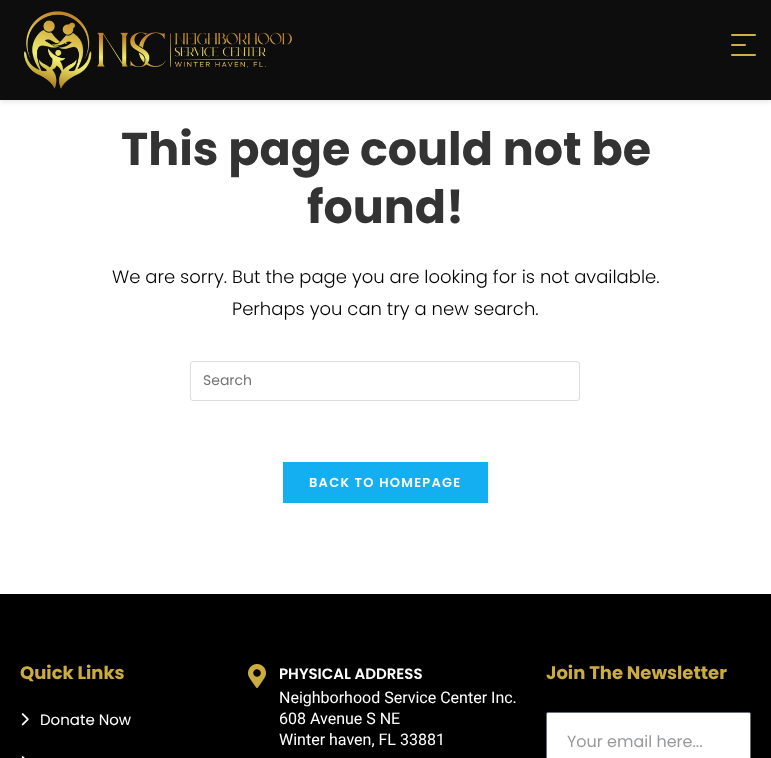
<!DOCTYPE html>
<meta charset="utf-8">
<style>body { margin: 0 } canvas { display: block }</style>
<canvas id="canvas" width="771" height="758"></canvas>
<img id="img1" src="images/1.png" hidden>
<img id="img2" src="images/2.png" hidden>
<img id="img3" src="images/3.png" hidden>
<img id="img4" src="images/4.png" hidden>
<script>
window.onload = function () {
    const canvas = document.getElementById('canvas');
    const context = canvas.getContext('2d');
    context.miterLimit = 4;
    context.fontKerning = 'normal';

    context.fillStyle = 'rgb(255, 255, 255)';
    context.fillRect(0, 0, 771, 758);
    context.fillStyle = 'rgba(13, 13, 13, 0.1)';
    context.filter = 'blur(2.5px)';
    context.beginPath();
    context.rect(0, 2, 771, 100);
    context.fill();
    context.filter = 'none';
    context.fillStyle = 'rgb(13, 13, 13)';
    context.fillRect(0, 0, 771, 100);
    context.drawImage(document.getElementById('img1'), 24, 11, 268, 78);
    context.fillStyle = 'rgb(207, 175, 73)';
    context.beginPath();
    context.roundRect(731, 44, 15, 2, 1);
    context.fill();
    context.beginPath();
    context.roundRect(731, 34, 25, 2, 1);
    context.fill();
    context.beginPath();
    context.roundRect(731, 54, 25, 2, 1);
    context.fill();
    context.beginPath();
    context.roundRect(190.5, 361.5, 389, 39, 2.5);
    context.strokeStyle = 'rgb(221, 221, 221)';
    context.stroke();
    context.fillStyle = 'rgb(19, 175, 240)';
    context.fillRect(283, 462, 205, 41);
    context.fillStyle = 'rgb(0, 0, 0)';
    context.fillRect(0, 594, 771, 164);
    context.drawImage(document.getElementById('img2'), 21, 713, 8, 13);
    context.drawImage(document.getElementById('img3'), 21, 756, 4, 2);
    context.drawImage(document.getElementById('img4'), 248, 664, 18, 24);
    context.fillStyle = 'rgb(255, 255, 255)';
    context.beginPath();
    context.roundRect(546.5, 712.5, 204, 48, 1.5);
    context.fill();
    context.strokeStyle = 'rgb(104, 110, 119)';
    context.stroke();
    context.font = 'bold 46px Poppins';
    context.fillStyle = 'rgb(51, 51, 51)';
    context.fillText('This page could not be', 121, 165);
    context.fillText('found!', 307, 223);
    context.font = '300 18px Poppins';
    context.fillStyle = 'rgb(0, 0, 0)';
    context.fillText('We are sorry. But the page you are looking for is not available.', 112, 283);
    context.fillText('Perhaps you can try a new search.', 232, 315);
    context.font = '14px Poppins';
    context.fillStyle = 'rgb(117, 117, 117)';
    context.fillText('Search', 203, 385);
    context.letterSpacing = '1.25px';
    context.font = '600 13px Poppins';
    context.fillStyle = 'rgb(255, 255, 255)';
    context.fillText('BACK TO HOMEPAGE', 309, 487);
    context.letterSpacing = '0px';
    context.font = 'bold 18px Poppins';
    context.fillStyle = 'rgb(204, 171, 63)';
    context.fillText('Quick Links', 20, 679);
    context.font = '15px Poppins';
    context.fillStyle = 'rgb(255, 255, 255)';
    context.fillText('Donate Now', 40, 725);
    context.font = '600 15px Poppins';
    context.fillText('PHYSICAL ADDRESS', 279, 679);
    context.font = '16px Roboto';
    context.fillText('Neighborhood Service Center Inc.', 279, 703);
    context.fillText('608 Avenue S NE', 279, 724);
    context.fillText('Winter haven, FL 33881', 279, 745);
    context.font = 'bold 18px Poppins';
    context.fillStyle = 'rgb(204, 171, 63)';
    context.fillText('Join The Newsletter', 546, 679);
    context.font = '16px Poppins';
    context.fillStyle = 'rgb(151, 153, 155)';
    context.fillText('Your email here...', 567, 747);
};
</script>
